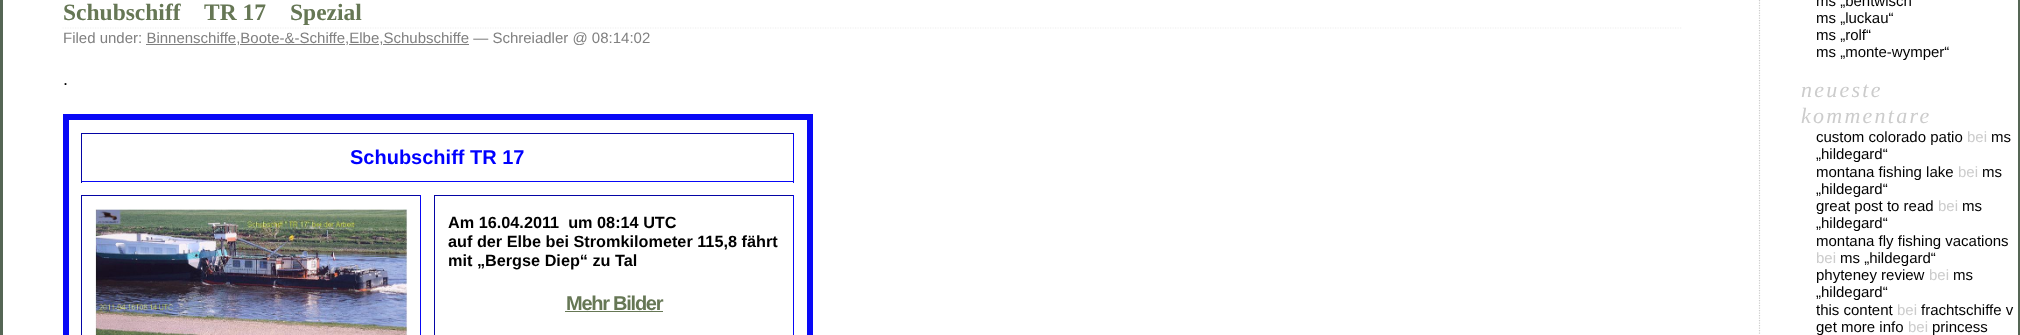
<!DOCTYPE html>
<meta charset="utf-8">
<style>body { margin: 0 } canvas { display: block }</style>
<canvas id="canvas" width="2020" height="335"></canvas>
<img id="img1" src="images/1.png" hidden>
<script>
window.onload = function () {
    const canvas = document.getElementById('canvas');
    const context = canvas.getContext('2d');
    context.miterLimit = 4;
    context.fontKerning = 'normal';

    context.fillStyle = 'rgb(255, 255, 255)';
    context.fillRect(0, 0, 2020, 335);
    context.fillStyle = 'rgb(85, 102, 85)';
    context.fillRect(2018, 0, 2, 335);
    context.fillRect(0, 0, 3, 335);
    context.beginPath();
    context.moveTo(62.5, 28);
    context.lineTo(1682.5, 28);
    context.strokeStyle = 'rgb(238, 238, 238)';
    context.lineWidth = 1.2;
    context.setLineDash([1.25, 1.25]);
    context.stroke();
    context.fillStyle = 'rgb(128, 128, 128)';
    context.fillRect(146, 44, 90, 1);
    context.fillRect(240, 44, 105, 1);
    context.fillRect(349, 44, 30, 1);
    context.fillRect(383, 44, 86, 1);
    context.strokeStyle = 'rgb(8, 8, 246)';
    context.lineWidth = 6;
    context.setLineDash([]);
    context.strokeRect(66, 117, 744, 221);
    context.fillStyle = 'rgb(5, 5, 164)';
    context.fillRect(81, 133, 713, 1);
    context.fillStyle = 'rgb(8, 8, 246)';
    context.fillRect(793, 133, 1, 50);
    context.fillRect(81, 181, 713, 1);
    context.fillStyle = 'rgb(5, 5, 164)';
    context.fillRect(81, 133, 1, 50);
    context.fillRect(81, 195, 340, 1);
    context.fillStyle = 'rgb(8, 8, 246)';
    context.fillRect(420, 195, 1, 140);
    context.fillStyle = 'rgb(5, 5, 164)';
    context.fillRect(81, 195, 1, 140);
    context.drawImage(document.getElementById('img1'), 95, 209, 313, 126);
    context.fillRect(434, 195, 360, 1);
    context.fillStyle = 'rgb(8, 8, 246)';
    context.fillRect(793, 195, 1, 140);
    context.fillStyle = 'rgb(5, 5, 164)';
    context.fillRect(434, 195, 1, 140);
    context.fillStyle = 'rgb(102, 119, 85)';
    context.fillRect(565, 311, 98, 1);
    context.beginPath();
    context.moveTo(1759.5, -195);
    context.lineTo(1759.5, 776);
    context.strokeStyle = 'rgb(204, 204, 204)';
    context.lineWidth = 1.2;
    context.setLineDash([1.25, 1.25]);
    context.stroke();
    context.font = 'bold 23.5px Liberation Serif';
    context.fillText('Schubschiff', 63, 20);
    context.fillText('TR 17', 204, 20);
    context.fillText('Spezial', 290, 20);
    context.font = '15px Liberation Sans';
    context.fillStyle = 'rgb(128, 128, 128)';
    context.fillText('Filed under: Binnenschiffe,Boote-&-Schiffe,Elbe,Schubschiffe — Schreiadler @ 08:14:02', 63, 43);
    context.letterSpacing = '-1.25px';
    context.font = '18px Liberation Sans';
    context.fillStyle = 'rgb(0, 0, 0)';
    context.fillText('.', 63, 85);
    context.letterSpacing = '0px';
    context.font = 'bold 20px Liberation Sans';
    context.fillStyle = 'rgb(0, 0, 255)';
    context.fillText('Schubschiff TR 17', 350, 164);
    context.font = 'bold 16.25px Liberation Sans';
    context.fillStyle = 'rgb(0, 0, 0)';
    context.fillText('Am 16.04.2011  um 08:14 UTC', 448, 228);
    context.fillText('auf der Elbe bei Stromkilometer 115,8 fährt', 448, 247);
    context.fillText('mit „Bergse Diep“ zu Tal', 448, 266);
    context.letterSpacing = '-1.25px';
    context.font = 'bold 20px Liberation Sans';
    context.fillStyle = 'rgb(102, 119, 85)';
    context.fillText('Mehr Bilder', 566, 310);
    context.letterSpacing = '0px';
    context.font = '15px Liberation Sans';
    context.fillStyle = 'rgb(0, 0, 0)';
    context.fillText('ms „bentwisch', 1816, 6);
    context.fillText('ms „luckau“', 1816, 23);
    context.fillText('ms „rolf“', 1816, 40);
    context.fillText('ms „monte-wymper“', 1816, 57);
    context.letterSpacing = '2.25px';
    context.font = 'italic 22px Liberation Serif';
    context.fillStyle = 'rgb(204, 204, 204)';
    context.fillText('neueste', 1801, 97);
    context.fillText('kommentare', 1801, 123);
    context.letterSpacing = '0px';
    context.font = '15px Liberation Sans';
    context.fillStyle = 'rgb(0, 0, 0)';
    context.fillText('custom colorado patio', 1816, 142);
    context.fillStyle = 'rgb(204, 204, 204)';
    context.fillText('bei', 1967, 142);
    context.fillStyle = 'rgb(0, 0, 0)';
    context.fillText('ms', 1991, 142);
    context.fillText('„hildegard“', 1816, 159);
    context.fillText('montana fishing lake', 1816, 177);
    context.fillStyle = 'rgb(204, 204, 204)';
    context.fillText('bei', 1958, 177);
    context.fillStyle = 'rgb(0, 0, 0)';
    context.fillText('ms', 1982, 177);
    context.fillText('„hildegard“', 1816, 194);
    context.fillText('great post to read', 1816, 211);
    context.fillStyle = 'rgb(204, 204, 204)';
    context.fillText('bei', 1938, 211);
    context.fillStyle = 'rgb(0, 0, 0)';
    context.fillText('ms', 1962, 211);
    context.fillText('„hildegard“', 1816, 228);
    context.fillText('montana fly fishing vacations', 1816, 246);
    context.fillStyle = 'rgb(204, 204, 204)';
    context.fillText('bei', 1816, 263);
    context.fillStyle = 'rgb(0, 0, 0)';
    context.fillText('ms „hildegard“', 1840, 263);
    context.fillText('phyteney review', 1816, 280);
    context.fillStyle = 'rgb(204, 204, 204)';
    context.fillText('bei', 1929, 280);
    context.fillStyle = 'rgb(0, 0, 0)';
    context.fillText('ms', 1953, 280);
    context.fillText('„hildegard“', 1816, 297);
    context.fillText('this content', 1816, 315);
    context.fillStyle = 'rgb(204, 204, 204)';
    context.fillText('bei', 1897, 315);
    context.fillStyle = 'rgb(0, 0, 0)';
    context.fillText('frachtschiffe v', 1921, 315);
    context.fillText('get more info', 1816, 332);
    context.fillStyle = 'rgb(204, 204, 204)';
    context.fillText('bei', 1908, 332);
    context.fillStyle = 'rgb(0, 0, 0)';
    context.fillText('princess', 1932, 332);
};
</script>
